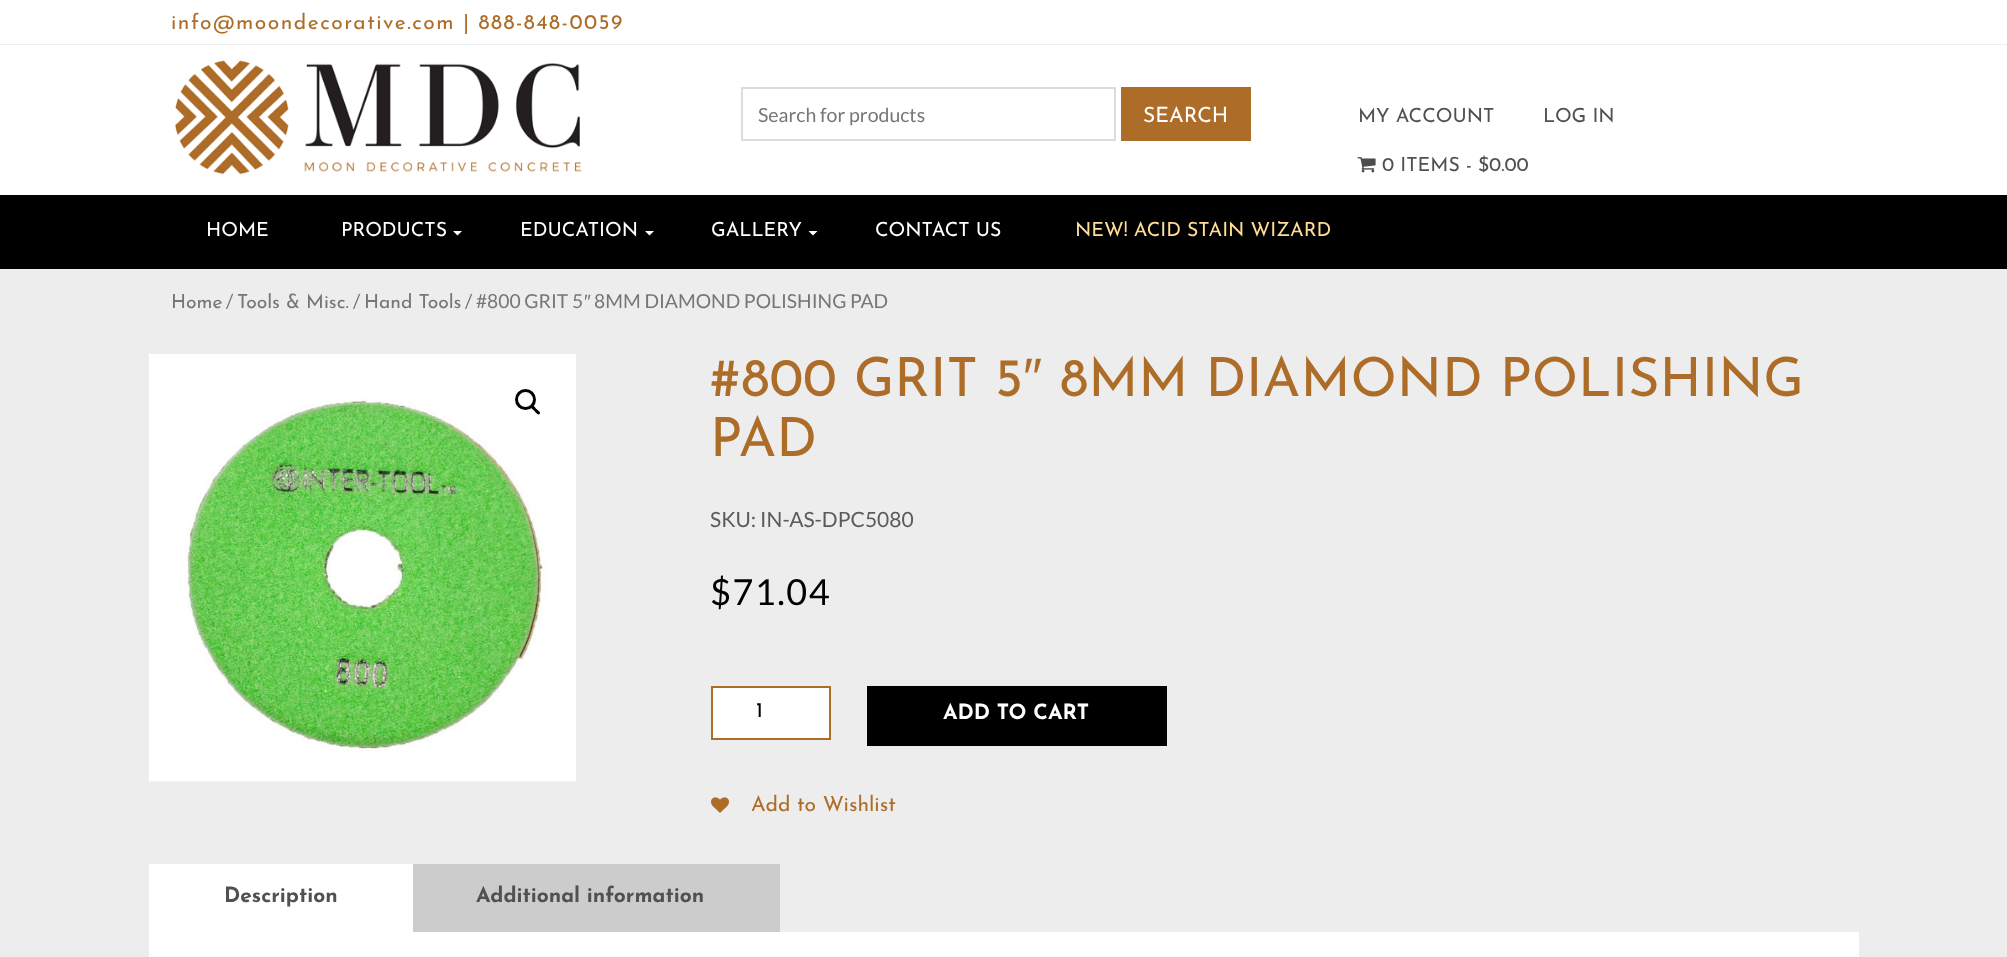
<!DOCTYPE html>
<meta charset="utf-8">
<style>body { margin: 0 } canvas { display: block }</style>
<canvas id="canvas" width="2007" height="957"></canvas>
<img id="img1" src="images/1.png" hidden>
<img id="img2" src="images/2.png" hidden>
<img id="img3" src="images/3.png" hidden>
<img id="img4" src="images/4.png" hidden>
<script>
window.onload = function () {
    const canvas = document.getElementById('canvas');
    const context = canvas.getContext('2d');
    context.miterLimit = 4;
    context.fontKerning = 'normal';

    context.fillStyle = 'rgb(237, 237, 237)';
    context.fillRect(0, 0, 2007, 957);
    context.fillStyle = 'rgb(255, 255, 255)';
    context.fillRect(0, 0, 2007, 44);
    context.fillRect(0, 45, 2007, 150);
    context.drawImage(document.getElementById('img1'), 175, 60, 407, 115);
    context.strokeStyle = 'rgb(220, 220, 220)';
    context.lineWidth = 2;
    context.strokeRect(742, 88, 373, 52);
    context.fillStyle = 'rgb(173, 109, 41)';
    context.fillRect(1121, 87, 130, 54);
    context.drawImage(document.getElementById('img2'), 1357, 157, 19, 16);
    context.fillStyle = 'rgb(0, 0, 0)';
    context.fillRect(0, 195, 2007, 74);
    context.fillStyle = 'rgb(255, 255, 255)';
    context.beginPath();
    context.moveTo(453, 231);
    context.lineTo(462, 231);
    context.lineTo(457.5, 235.5);
    context.closePath();
    context.fill();
    context.beginPath();
    context.moveTo(645, 231);
    context.lineTo(654, 231);
    context.lineTo(649.5, 235.5);
    context.closePath();
    context.fill();
    context.beginPath();
    context.moveTo(808.5, 231);
    context.lineTo(817.5, 231);
    context.lineTo(813, 235.5);
    context.closePath();
    context.fill();
    context.drawImage(document.getElementById('img3'), 148, 354, 428, 428);
    context.beginPath();
    context.arc(525.5, 399.5, 9, 0, 2 * Math.PI);
    context.strokeStyle = 'rgb(0, 0, 0)';
    context.lineWidth = 3;
    context.stroke();
    context.fillStyle = 'rgb(0, 0, 0)';
    context.beginPath();
    context.moveTo(531.5, 405.5);
    context.bezierCurveTo(533, 404, 535.5, 408, 536.5, 409);
    context.bezierCurveTo(537.5, 410, 541.5, 412.5, 539.5, 414);
    context.bezierCurveTo(538, 416, 535.5, 412, 534.5, 411);
    context.bezierCurveTo(533.5, 410, 529.5, 407.5, 531.5, 405.5);
    context.closePath();
    context.fill();
    context.fillStyle = 'rgb(255, 255, 255)';
    context.beginPath();
    context.rect(712, 687, 118, 52);
    context.fill();
    context.strokeStyle = 'rgb(173, 109, 41)';
    context.lineWidth = 2;
    context.stroke();
    context.fillStyle = 'rgb(0, 0, 0)';
    context.fillRect(867, 686, 300, 60);
    context.drawImage(document.getElementById('img4'), 711, 797, 18, 16);
    context.fillStyle = 'rgb(255, 255, 255)';
    context.fillRect(149, 864, 264, 68);
    context.fillStyle = 'rgb(204, 204, 204)';
    context.fillRect(413, 864, 367, 68);
    context.fillStyle = 'rgb(255, 255, 255)';
    context.fillRect(149, 932, 1710, 25);
    context.letterSpacing = '1.5px';
    context.font = '21px Josefin Sans';
    context.fillStyle = 'rgb(173, 109, 41)';
    context.fillText('info@moondecorative.com | 888-848-0059', 171, 29);
    context.letterSpacing = '0px';
    context.font = '19.5px Lato';
    context.fillStyle = 'rgb(118, 118, 118)';
    context.fillText('Search for products', 758, 122);
    context.font = '21px Josefin Sans';
    context.fillStyle = 'rgb(255, 255, 255)';
    context.fillText('SEARCH', 1143, 122);
    context.font = '19.5px Josefin Sans';
    context.fillStyle = 'rgb(81, 81, 81)';
    context.fillText('MY ACCOUNT', 1358, 122);
    context.fillText('LOG IN', 1543, 122);
    context.fillText('0 ITEMS - $0.00', 1382, 171);
    context.fillStyle = 'rgb(255, 255, 255)';
    context.fillText('HOME', 206, 236);
    context.fillText('PRODUCTS', 341, 236);
    context.fillText('EDUCATION', 520, 236);
    context.fillText('GALLERY', 711, 236);
    context.fillText('CONTACT US', 875, 236);
    context.fillStyle = 'rgb(255, 221, 150)';
    context.fillText('NEW! ACID STAIN WIZARD', 1075, 236);
    context.font = '19.3px Josefin Sans';
    context.fillStyle = 'rgb(118, 118, 118)';
    context.fillText('Home', 171, 308);
    context.font = '19.3px Lato';
    context.fillText('/', 226, 308);
    context.font = '19.3px Josefin Sans';
    context.fillText('Tools & Misc.', 237, 308);
    context.font = '19.3px Lato';
    context.fillText('/', 353, 308);
    context.font = '19.3px Josefin Sans';
    context.fillText('Hand Tools', 364, 308);
    context.font = '19.3px Lato';
    context.fillText('/ #800 GRIT 5', 465, 308);
    context.font = '19.3px Liberation Sans';
    context.fillText('″', 584, 308);
    context.font = '19.3px Lato';
    context.fillText('8MM DIAMOND POLISHING PAD', 594, 308);
    context.font = '54px Josefin Sans';
    context.fillStyle = 'rgb(173, 109, 41)';
    context.fillText('#800 GRIT 5', 710, 396);
    context.font = '54px Liberation Sans';
    context.fillText('″', 1023, 396);
    context.font = '54px Josefin Sans';
    context.fillText('8MM DIAMOND POLISHING', 1060, 396);
    context.fillText('PAD', 710, 456);
    context.font = '21px Lato';
    context.fillStyle = 'rgb(91, 91, 91)';
    context.fillText('SKU: IN-AS-DPC5080', 710, 527);
    context.letterSpacing = '1.5px';
    context.font = '36px Lato';
    context.fillStyle = 'rgb(0, 0, 0)';
    context.fillText('$71.04', 710, 605);
    context.letterSpacing = '0px';
    context.font = '21px Josefin Sans';
    context.fillText('1', 756, 717);
    context.font = 'bold 21px Josefin Sans';
    context.fillStyle = 'rgb(255, 255, 255)';
    context.fillText('ADD TO CART', 943, 719);
    context.font = '21px Josefin Sans';
    context.fillStyle = 'rgb(173, 109, 41)';
    context.fillText('Add to Wishlist', 751, 811);
    context.font = 'bold 21px Josefin Sans';
    context.fillStyle = 'rgb(81, 81, 81)';
    context.fillText('Description', 224, 902);
    context.fillText('Additional information', 476, 902);
};
</script>
